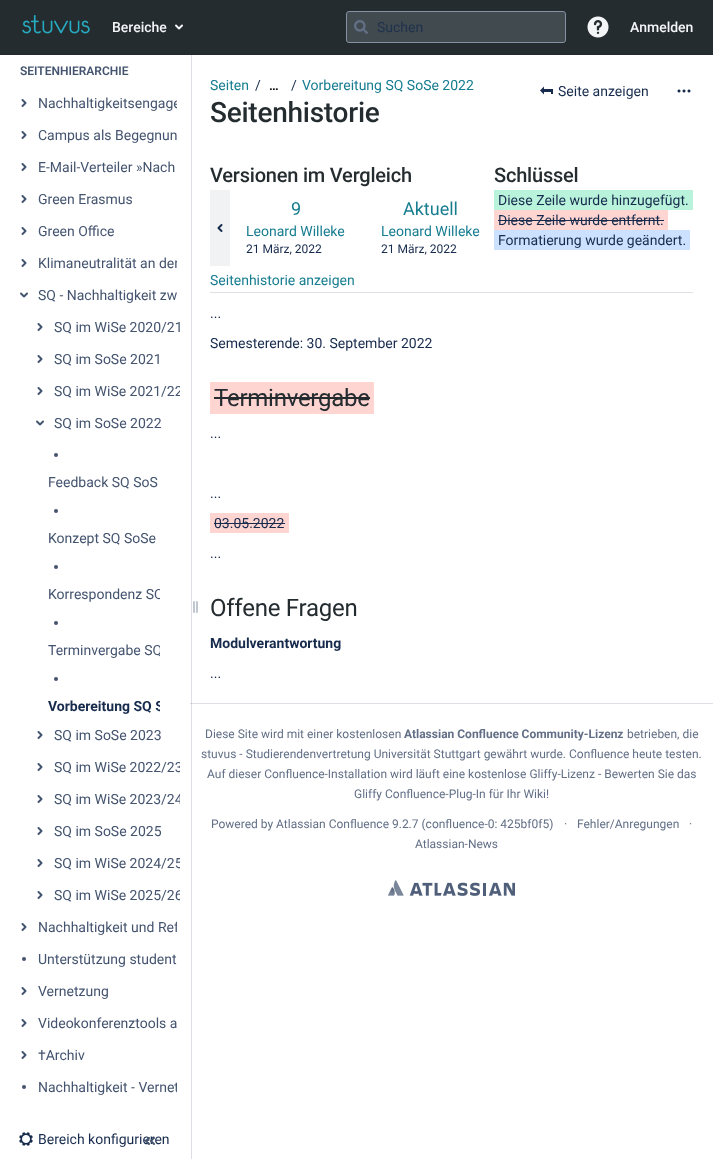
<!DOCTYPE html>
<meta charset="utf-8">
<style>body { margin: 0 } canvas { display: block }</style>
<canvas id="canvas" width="713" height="1159"></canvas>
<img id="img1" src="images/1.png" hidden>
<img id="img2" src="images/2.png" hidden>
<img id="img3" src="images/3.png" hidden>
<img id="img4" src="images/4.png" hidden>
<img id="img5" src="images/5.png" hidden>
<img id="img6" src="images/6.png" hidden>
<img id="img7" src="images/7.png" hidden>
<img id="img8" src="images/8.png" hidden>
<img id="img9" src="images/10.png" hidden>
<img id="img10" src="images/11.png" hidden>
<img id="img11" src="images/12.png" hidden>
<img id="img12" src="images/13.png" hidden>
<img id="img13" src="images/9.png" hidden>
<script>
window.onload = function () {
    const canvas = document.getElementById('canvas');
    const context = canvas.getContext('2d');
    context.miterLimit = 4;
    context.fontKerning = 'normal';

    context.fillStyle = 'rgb(255, 255, 255)';
    context.fillRect(0, 0, 713, 1159);
    context.fillStyle = 'rgb(221, 223, 229)';
    context.fillRect(191, 55, 1, 1104);
    context.fillStyle = 'rgb(36, 44, 48)';
    context.fillRect(0, 0, 713, 54);
    context.fillStyle = 'rgb(32, 42, 51)';
    context.fillRect(0, 54, 713, 1);
    context.drawImage(document.getElementById('img1'), 22, 15, 68, 19);
    context.drawImage(document.getElementById('img2'), 175, 24, 8, 6);
    context.fillStyle = 'rgb(64, 74, 79)';
    context.beginPath();
    context.roundRect(346.5, 11.5, 219, 31, 2.5);
    context.fill();
    context.strokeStyle = 'rgb(133, 144, 162)';
    context.stroke();
    context.drawImage(document.getElementById('img3'), 354, 20, 14, 14);
    context.drawImage(document.getElementById('img4'), 587, 16, 22, 22);
    context.drawImage(document.getElementById('img5'), 21, 99, 6, 8);
    context.drawImage(document.getElementById('img5'), 21, 131, 6, 8);
    context.drawImage(document.getElementById('img5'), 21, 163, 6, 8);
    context.drawImage(document.getElementById('img5'), 21, 195, 6, 8);
    context.drawImage(document.getElementById('img5'), 21, 227, 6, 8);
    context.drawImage(document.getElementById('img5'), 21, 259, 6, 8);
    context.drawImage(document.getElementById('img6'), 20, 292, 8, 6);
    context.drawImage(document.getElementById('img5'), 37, 323, 6, 8);
    context.drawImage(document.getElementById('img5'), 37, 355, 6, 8);
    context.drawImage(document.getElementById('img5'), 37, 387, 6, 8);
    context.drawImage(document.getElementById('img6'), 36, 420, 8, 6);
    context.fillStyle = 'rgb(68, 84, 111)';
    context.beginPath();
    context.arc(56, 455, 2, 0, 2 * Math.PI);
    context.fill();
    context.beginPath();
    context.arc(56, 511, 2, 0, 2 * Math.PI);
    context.fill();
    context.beginPath();
    context.arc(56, 567, 2, 0, 2 * Math.PI);
    context.fill();
    context.beginPath();
    context.arc(56, 623, 2, 0, 2 * Math.PI);
    context.fill();
    context.beginPath();
    context.arc(56, 679, 2, 0, 2 * Math.PI);
    context.fill();
    context.drawImage(document.getElementById('img5'), 37, 731, 6, 8);
    context.drawImage(document.getElementById('img5'), 37, 763, 6, 8);
    context.drawImage(document.getElementById('img5'), 37, 795, 6, 8);
    context.drawImage(document.getElementById('img5'), 37, 827, 6, 8);
    context.drawImage(document.getElementById('img5'), 37, 859, 6, 8);
    context.drawImage(document.getElementById('img5'), 37, 891, 6, 8);
    context.drawImage(document.getElementById('img5'), 21, 923, 6, 8);
    context.beginPath();
    context.arc(24, 959, 2, 0, 2 * Math.PI);
    context.fill();
    context.drawImage(document.getElementById('img5'), 21, 987, 6, 8);
    context.drawImage(document.getElementById('img5'), 21, 1019, 6, 8);
    context.drawImage(document.getElementById('img5'), 21, 1051, 6, 8);
    context.beginPath();
    context.arc(24, 1087, 2, 0, 2 * Math.PI);
    context.fill();
    context.drawImage(document.getElementById('img7'), 193, 601, 5, 12);
    context.drawImage(document.getElementById('img8'), 19, 1132, 14, 14);
    context.fillStyle = 'rgb(221, 224, 229)';
    context.fillRect(190, 703, 523, 1);
    context.fillStyle = 'rgb(191, 197, 206)';
    context.fillRect(191, 703, 1, 1);
    context.drawImage(document.getElementById('img9'), 540, 86, 13, 9);
    context.drawImage(document.getElementById('img10'), 677, 89, 14, 4);
    context.fillStyle = 'rgb(221, 224, 229)';
    context.fillRect(210, 292, 483, 1);
    context.fillStyle = 'rgb(186, 243, 219)';
    context.fillRect(494, 190, 199, 20);
    context.fillStyle = 'rgb(255, 213, 210)';
    context.fillRect(494, 210, 174, 20);
    context.fillStyle = 'rgb(23, 43, 77)';
    context.fillRect(498, 220, 166, 1);
    context.fillStyle = 'rgb(204, 224, 255)';
    context.fillRect(494, 230, 196, 20);
    context.fillStyle = 'rgb(240, 242, 244)';
    context.fillRect(210, 190, 20, 76);
    context.drawImage(document.getElementById('img11'), 217, 224, 6, 8);
    context.fillStyle = 'rgb(255, 213, 210)';
    context.fillRect(210, 382, 164, 32);
    context.fillStyle = 'rgb(36, 44, 48)';
    context.fillRect(214, 397, 156, 2);
    context.fillStyle = 'rgb(255, 213, 210)';
    context.fillRect(210, 513, 79, 20);
    context.fillStyle = 'rgb(23, 43, 77)';
    context.fillRect(214, 523, 71, 1);
    context.drawImage(document.getElementById('img12'), 388, 880, 127, 16);
    context.font = '500 14px Roboto';
    context.fillStyle = 'rgb(244, 245, 247)';
    context.fillText('Bereiche', 112, 32);
    context.font = '14px Roboto';
    context.fillStyle = 'rgb(31, 49, 77)';
    context.fillText('Suchen', 377, 32);
    context.font = '500 14px Roboto';
    context.fillStyle = 'rgb(244, 245, 247)';
    context.fillText('Anmelden', 630, 32);
    context.font = '600 12px Roboto';
    context.fillStyle = 'rgb(68, 84, 111)';
    context.fillText('SEITENHIERARCHIE', 20, 75);
    context.save();
    context.beginPath();
    context.rect(36, 91, 141, 24);
    context.clip();
    context.font = '14px Roboto';
    context.fillText('Nachhaltigkeitsengage', 38, 108);
    context.restore();
    context.font = '14px Roboto';
    context.fillText('Campus als Begegnun', 38, 140);
    context.fillText('E-Mail-Verteiler »Nach', 38, 172);
    context.fillText('Green Erasmus', 38, 204);
    context.fillText('Green Office', 38, 236);
    context.save();
    context.beginPath();
    context.rect(36, 251, 141, 24);
    context.clip();
    context.fillText('Klimaneutralität an der', 38, 268);
    context.restore();
    context.fillText('SQ - Nachhaltigkeit zw', 38, 300);
    context.fillText('SQ im WiSe 2020/21', 54, 332);
    context.fillText('SQ im SoSe 2021', 54, 364);
    context.save();
    context.beginPath();
    context.rect(52, 379, 128, 24);
    context.clip();
    context.fillText('SQ im WiSe 2021/22', 54, 396);
    context.restore();
    context.fillText('SQ im SoSe 2022', 54, 428);
    context.fillText('Feedback SQ SoS', 48, 487);
    context.fillText('Konzept SQ SoSe', 48, 543);
    context.save();
    context.beginPath();
    context.rect(46, 582, 114, 24);
    context.clip();
    context.fillText('Korrespondenz SQ', 48, 599);
    context.restore();
    context.save();
    context.beginPath();
    context.rect(46, 638, 114, 24);
    context.clip();
    context.fillText('Terminvergabe SQ', 48, 655);
    context.restore();
    context.save();
    context.beginPath();
    context.rect(46, 694, 114, 24);
    context.clip();
    context.font = 'bold 14px Roboto';
    context.fillStyle = 'rgb(23, 43, 77)';
    context.fillText('Vorbereitung SQ S', 48, 711);
    context.restore();
    context.fillText('SQ im SoSe 2023', 54, 740);
    context.save();
    context.beginPath();
    context.rect(52, 755, 128, 24);
    context.clip();
    context.fillText('SQ im WiSe 2022/23', 54, 772);
    context.restore();
    context.save();
    context.beginPath();
    context.rect(52, 787, 128, 24);
    context.clip();
    context.fillText('SQ im WiSe 2023/24', 54, 804);
    context.restore();
    context.fillText('SQ im SoSe 2025', 54, 836);
    context.save();
    context.beginPath();
    context.rect(52, 851, 128, 24);
    context.clip();
    context.fillText('SQ im WiSe 2024/25', 54, 868);
    context.restore();
    context.save();
    context.beginPath();
    context.rect(52, 883, 128, 24);
    context.clip();
    context.fillText('SQ im WiSe 2025/26', 54, 900);
    context.restore();
    context.save();
    context.beginPath();
    context.rect(36, 915, 141, 24);
    context.clip();
    context.fillText('Nachhaltigkeit und Ref', 38, 932);
    context.restore();
    context.fillText('Unterstützung student', 38, 964);
    context.fillText('Vernetzung', 38, 996);
    context.fillText('Videokonferenztools a', 38, 1028);
    context.fillText('†Archiv', 38, 1060);
    context.save();
    context.beginPath();
    context.rect(36, 1075, 141, 24);
    context.clip();
    context.fillText('Nachhaltigkeit - Vernet', 38, 1092);
    context.restore();
    context.fillStyle = 'rgb(23, 43, 77)';
    context.fillText('Bereich konfigurieren', 38, 1144);
    context.drawImage(document.getElementById('img13'), 145, 1137, 10, 8);
    context.fillStyle = 'rgb(23, 125, 145)';
    context.fillText('Seiten', 210, 90);
    context.fillStyle = 'rgb(23, 43, 77)';
    context.fillText('/', 255, 90);
    context.font = 'bold 13px Roboto';
    context.fillStyle = 'rgb(0, 0, 0)';
    context.fillText('…', 269, 90);
    context.font = '14px Roboto';
    context.fillStyle = 'rgb(23, 43, 77)';
    context.fillText('/', 291, 90);
    context.fillStyle = 'rgb(23, 125, 145)';
    context.fillText('Vorbereitung SQ SoSe 2022', 302, 90);
    context.letterSpacing = '-0.25px';
    context.font = '500 28px Roboto';
    context.fillStyle = 'rgb(36, 44, 48)';
    context.fillText('Seitenhistorie', 210, 122);
    context.letterSpacing = '0px';
    context.font = '14px Roboto';
    context.fillStyle = 'rgb(23, 43, 77)';
    context.fillText('Seite anzeigen', 558, 96);
    context.letterSpacing = '-0.2px';
    context.font = '500 20px Roboto';
    context.fillStyle = 'rgb(36, 44, 48)';
    context.fillText('Versionen im Vergleich', 210, 182);
    context.fillText('Schlüssel', 494, 182);
    context.letterSpacing = '0px';
    context.font = '14px Roboto';
    context.fillStyle = 'rgb(23, 43, 77)';
    context.fillText('Diese Zeile wurde hinzugefügt.', 498, 205);
    context.fillText('Diese Zeile wurde entfernt.', 498, 225);
    context.fillText('Formatierung wurde geändert.', 498, 245);
    context.font = '18px Roboto';
    context.fillStyle = 'rgb(23, 125, 145)';
    context.fillText('9', 291, 215);
    context.font = '14px Roboto';
    context.fillText('Leonard Willeke', 246, 236);
    context.font = '12px Roboto';
    context.fillStyle = 'rgb(23, 43, 77)';
    context.fillText('21 März, 2022', 246, 253);
    context.font = '18px Roboto';
    context.fillStyle = 'rgb(23, 125, 145)';
    context.fillText('Aktuell', 403, 215);
    context.font = '14px Roboto';
    context.fillText('Leonard Willeke', 381, 236);
    context.font = '12px Roboto';
    context.fillStyle = 'rgb(23, 43, 77)';
    context.fillText('21 März, 2022', 381, 253);
    context.font = '14px Roboto';
    context.fillStyle = 'rgb(23, 125, 145)';
    context.fillText('Seitenhistorie anzeigen', 210, 285);
    context.fillStyle = 'rgb(23, 43, 77)';
    context.fillText('...', 210, 318);
    context.fillText('Semesterende: 30. September 2022', 210, 348);
    context.letterSpacing = '-0.25px';
    context.font = '24px Roboto';
    context.fillStyle = 'rgb(36, 44, 48)';
    context.fillText('Terminvergabe', 214, 406);
    context.letterSpacing = '0px';
    context.font = '14px Roboto';
    context.fillStyle = 'rgb(23, 43, 77)';
    context.fillText('...', 210, 438);
    context.fillText('...', 210, 498);
    context.fillText('03.05.2022', 214, 528);
    context.fillText('...', 210, 558);
    context.letterSpacing = '-0.25px';
    context.font = '24px Roboto';
    context.fillStyle = 'rgb(36, 44, 48)';
    context.fillText('Offene Fragen', 210, 616);
    context.letterSpacing = '0px';
    context.font = 'bold 14px Roboto';
    context.fillStyle = 'rgb(23, 43, 77)';
    context.fillText('Modulverantwortung', 210, 648);
    context.font = '14px Roboto';
    context.fillText('...', 210, 678);
    context.font = '12px Roboto';
    context.fillStyle = 'rgb(98, 111, 134)';
    context.fillText('Diese Site wird mit einer kostenlosen', 205, 738);
    context.font = 'bold 12px Roboto';
    context.fillText('Atlassian Confluence Community-Lizenz', 404, 738);
    context.font = '12px Roboto';
    context.fillText('betrieben, die', 627, 738);
    context.fillText('stuvus - Studierendenvertretung Universität Stuttgart gewährt wurde. Confluence heute testen.', 201, 758);
    context.fillText('Auf dieser Confluence-Installation wird läuft eine kostenlose Gliffy-Lizenz - Bewerten Sie das', 207, 778);
    context.fillText('Gliffy Confluence-Plug-In für Ihr Wiki!', 354, 798);
    context.fillText('Powered by Atlassian Confluence 9.2.7 (confluence-0: 425bf0f5)', 211, 828);
    context.fillText('·', 564, 828);
    context.fillText('Fehler/Anregungen', 577, 828);
    context.fillText('·', 689, 828);
    context.fillText('Atlassian-News', 415, 848);
};
</script>
